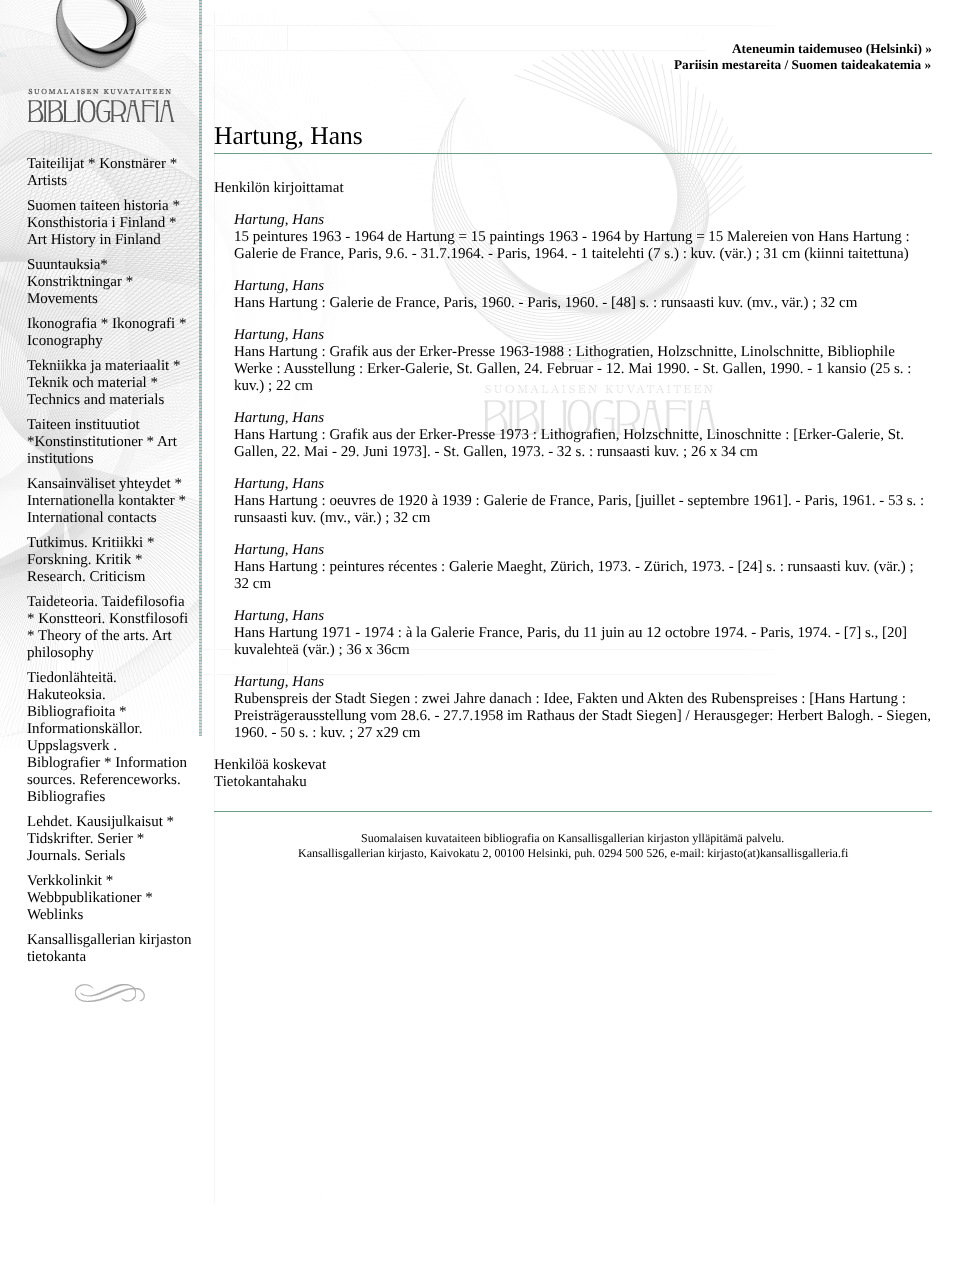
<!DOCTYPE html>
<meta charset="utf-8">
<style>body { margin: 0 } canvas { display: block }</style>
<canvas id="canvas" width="972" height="1286"></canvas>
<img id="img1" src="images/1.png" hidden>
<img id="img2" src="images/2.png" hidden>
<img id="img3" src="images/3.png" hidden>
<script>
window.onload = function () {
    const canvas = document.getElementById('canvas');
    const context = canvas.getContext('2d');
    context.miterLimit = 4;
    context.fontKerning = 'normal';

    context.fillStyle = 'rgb(255, 255, 255)';
    context.fillRect(0, 0, 972, 1286);
    context.drawImage(document.getElementById('img1'), 0, 0, 202, 748);
    context.drawImage(document.getElementById('img2'), 75, 984, 70, 18);
    context.drawImage(document.getElementById('img3'), 202, 11, 573, 1193);
    context.fillStyle = 'rgb(111, 158, 136)';
    context.fillRect(214, 153, 718, 1);
    context.fillRect(214, 811, 718, 1);
    context.font = '15px Liberation Serif';
    context.fillStyle = 'rgb(0, 0, 0)';
    context.fillText('Taiteilijat * Konstnärer *', 27, 168);
    context.fillText('Artists', 27, 185);
    context.fillText('Suomen taiteen historia *', 27, 210);
    context.fillText('Konsthistoria i Finland *', 27, 227);
    context.fillText('Art History in Finland', 27, 244);
    context.fillText('Suuntauksia*', 27, 269);
    context.fillText('Konstriktningar *', 27, 286);
    context.fillText('Movements', 27, 303);
    context.fillText('Ikonografia * Ikonografi *', 27, 328);
    context.fillText('Iconography', 27, 345);
    context.fillText('Tekniikka ja materiaalit *', 27, 370);
    context.fillText('Teknik och material *', 27, 387);
    context.fillText('Technics and materials', 27, 404);
    context.fillText('Taiteen instituutiot', 27, 429);
    context.fillText('*Konstinstitutioner * Art', 27, 446);
    context.fillText('institutions', 27, 463);
    context.fillText('Kansainväliset yhteydet *', 27, 488);
    context.fillText('Internationella kontakter *', 27, 505);
    context.fillText('International contacts', 27, 522);
    context.fillText('Tutkimus. Kritiikki *', 27, 547);
    context.fillText('Forskning. Kritik *', 27, 564);
    context.fillText('Research. Criticism', 27, 581);
    context.fillText('Taideteoria. Taidefilosofia', 27, 606);
    context.fillText('* Konstteori. Konstfilosofi', 27, 623);
    context.fillText('* Theory of the arts. Art', 27, 640);
    context.fillText('philosophy', 27, 657);
    context.fillText('Tiedonlähteitä.', 27, 682);
    context.fillText('Hakuteoksia.', 27, 699);
    context.fillText('Bibliografioita *', 27, 716);
    context.fillText('Informationskällor.', 27, 733);
    context.fillText('Uppslagsverk .', 27, 750);
    context.fillText('Biblografier * Information', 27, 767);
    context.fillText('sources. Referenceworks.', 27, 784);
    context.fillText('Bibliografies', 27, 801);
    context.fillText('Lehdet. Kausijulkaisut *', 27, 826);
    context.fillText('Tidskrifter. Serier *', 27, 843);
    context.fillText('Journals. Serials', 27, 860);
    context.fillText('Verkkolinkit *', 27, 885);
    context.fillText('Webbpublikationer *', 27, 902);
    context.fillText('Weblinks', 27, 919);
    context.fillText('Kansallisgallerian kirjaston', 27, 944);
    context.fillText('tietokanta', 27, 961);
    context.font = 'bold 13.3px Liberation Serif';
    context.fillText('Ateneumin taidemuseo (Helsinki) »', 732, 53);
    context.fillText('Pariisin mestareita / Suomen taideakatemia »', 674, 69);
    context.font = '25.5px Liberation Serif';
    context.fillText('Hartung, Hans', 214, 144);
    context.font = '15px Liberation Serif';
    context.fillText('Henkilön kirjoittamat', 214, 192);
    context.font = 'italic 15px Liberation Serif';
    context.fillText('Hartung, Hans', 234, 224);
    context.font = '15px Liberation Serif';
    context.fillText('15 peintures 1963 - 1964 de Hartung = 15 paintings 1963 - 1964 by Hartung = 15 Malereien von Hans Hartung :', 234, 241);
    context.fillText('Galerie de France, Paris, 9.6. - 31.7.1964. - Paris, 1964. - 1 taitelehti (7 s.) : kuv. (vär.) ; 31 cm (kiinni taitettuna)', 234, 258);
    context.font = 'italic 15px Liberation Serif';
    context.fillText('Hartung, Hans', 234, 290);
    context.font = '15px Liberation Serif';
    context.fillText('Hans Hartung : Galerie de France, Paris, 1960. - Paris, 1960. - [48] s. : runsaasti kuv. (mv., vär.) ; 32 cm', 234, 307);
    context.font = 'italic 15px Liberation Serif';
    context.fillText('Hartung, Hans', 234, 339);
    context.font = '15px Liberation Serif';
    context.fillText('Hans Hartung : Grafik aus der Erker-Presse 1963-1988 : Lithogratien, Holzschnitte, Linolschnitte, Bibliophile', 234, 356);
    context.fillText('Werke : Ausstellung : Erker-Galerie, St. Gallen, 24. Februar - 12. Mai 1990. - St. Gallen, 1990. - 1 kansio (25 s. :', 234, 373);
    context.fillText('kuv.) ; 22 cm', 234, 390);
    context.font = 'italic 15px Liberation Serif';
    context.fillText('Hartung, Hans', 234, 422);
    context.font = '15px Liberation Serif';
    context.fillText('Hans Hartung : Grafik aus der Erker-Presse 1973 : Lithografien, Holzschnitte, Linoschnitte : [Erker-Galerie, St.', 234, 439);
    context.fillText('Gallen, 22. Mai - 29. Juni 1973]. - St. Gallen, 1973. - 32 s. : runsaasti kuv. ; 26 x 34 cm', 234, 456);
    context.font = 'italic 15px Liberation Serif';
    context.fillText('Hartung, Hans', 234, 488);
    context.font = '15px Liberation Serif';
    context.fillText('Hans Hartung : oeuvres de 1920 à 1939 : Galerie de France, Paris, [juillet - septembre 1961]. - Paris, 1961. - 53 s. :', 234, 505);
    context.fillText('runsaasti kuv. (mv., vär.) ; 32 cm', 234, 522);
    context.font = 'italic 15px Liberation Serif';
    context.fillText('Hartung, Hans', 234, 554);
    context.font = '15px Liberation Serif';
    context.fillText('Hans Hartung : peintures récentes : Galerie Maeght, Zürich, 1973. - Zürich, 1973. - [24] s. : runsaasti kuv. (vär.) ;', 234, 571);
    context.fillText('32 cm', 234, 588);
    context.font = 'italic 15px Liberation Serif';
    context.fillText('Hartung, Hans', 234, 620);
    context.font = '15px Liberation Serif';
    context.fillText('Hans Hartung 1971 - 1974 : à la Galerie France, Paris, du 11 juin au 12 octobre 1974. - Paris, 1974. - [7] s., [20]', 234, 637);
    context.fillText('kuvalehteä (vär.) ; 36 x 36cm', 234, 654);
    context.font = 'italic 15px Liberation Serif';
    context.fillText('Hartung, Hans', 234, 686);
    context.font = '15px Liberation Serif';
    context.fillText('Rubenspreis der Stadt Siegen : zwei Jahre danach : Idee, Fakten und Akten des Rubenspreises : [Hans Hartung :', 234, 703);
    context.fillText('Preisträgerausstellung vom 28.6. - 27.7.1958 im Rathaus der Stadt Siegen] / Herausgeger: Herbert Balogh. - Siegen,', 234, 720);
    context.fillText('1960. - 50 s. : kuv. ; 27 x29 cm', 234, 737);
    context.fillText('Henkilöä koskevat', 214, 769);
    context.fillText('Tietokantahaku', 214, 786);
    context.font = '12px Liberation Serif';
    context.fillText('Suomalaisen kuvataiteen bibliografia on Kansallisgallerian kirjaston ylläpitämä palvelu.', 361, 842);
    context.fillText('Kansallisgallerian kirjasto, Kaivokatu 2, 00100 Helsinki, puh. 0294 500 526, e-mail: kirjasto(at)kansallisgalleria.fi', 298, 857);
};
</script>
